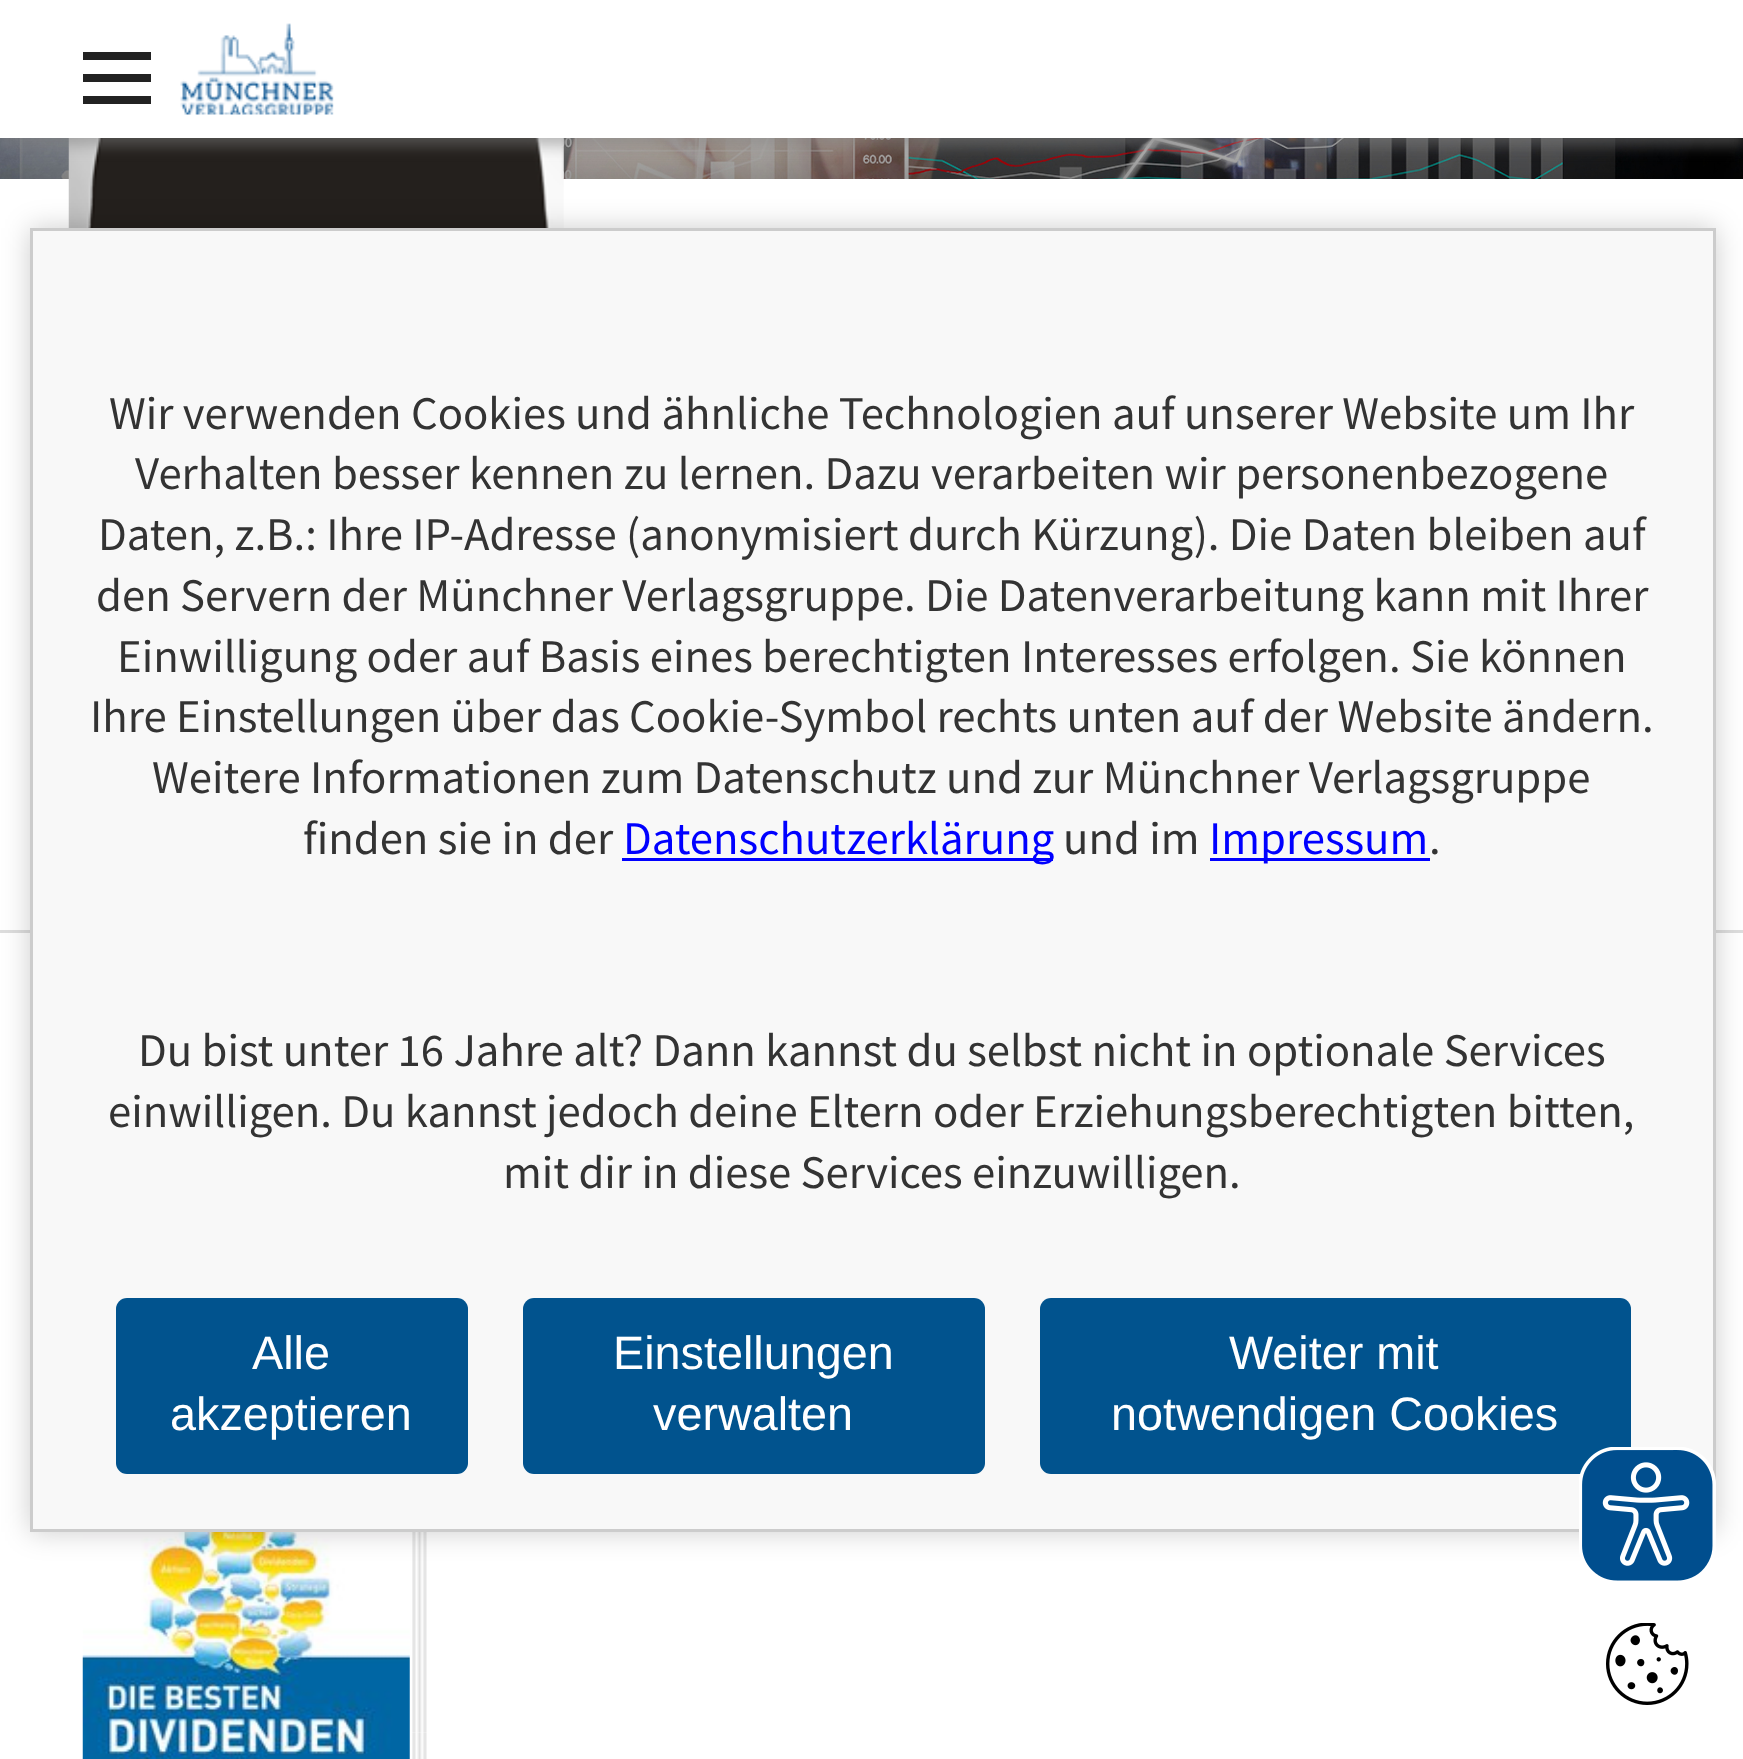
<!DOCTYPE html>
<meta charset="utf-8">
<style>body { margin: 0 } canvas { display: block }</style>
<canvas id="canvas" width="1743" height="1759"></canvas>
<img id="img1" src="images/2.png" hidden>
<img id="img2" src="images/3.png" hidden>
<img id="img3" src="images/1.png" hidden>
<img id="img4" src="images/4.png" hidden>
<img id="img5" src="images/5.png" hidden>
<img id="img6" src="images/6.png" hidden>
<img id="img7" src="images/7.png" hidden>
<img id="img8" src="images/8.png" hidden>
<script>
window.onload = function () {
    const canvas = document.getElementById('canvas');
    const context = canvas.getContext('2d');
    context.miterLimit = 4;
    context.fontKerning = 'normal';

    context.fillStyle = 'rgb(255, 255, 255)';
    context.fillRect(0, 0, 1743, 1759);
    context.drawImage(document.getElementById('img1'), 0, 138, 1743, 41);
    context.drawImage(document.getElementById('img2'), 68, 138, 496, 90);
    context.fillStyle = 'rgba(125, 125, 125, 0.5)';
    context.filter = 'blur(7px)';
    context.beginPath();
    context.rect(0, 8, 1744, 138);
    context.fill();
    context.filter = 'none';
    context.fillStyle = 'rgb(255, 255, 255)';
    context.fillRect(0, 0, 1743, 138);
    context.fillStyle = 'rgb(34, 34, 34)';
    context.fillRect(83, 52, 68, 8);
    context.fillRect(83, 74, 68, 8);
    context.fillRect(83, 96, 68, 8);
    context.drawImage(document.getElementById('img3'), 180, 23, 154, 92);
    context.fillStyle = 'rgb(221, 221, 221)';
    context.fillRect(0, 930, 1743, 3);
    context.drawImage(document.getElementById('img4'), 82, 1532, 328, 227);
    context.drawImage(document.getElementById('img5'), 412, 1532, 15, 201);
    context.drawImage(document.getElementById('img6'), 412, 1733, 15, 26);
    context.fillStyle = 'rgba(0, 0, 0, 0.2)';
    context.filter = 'blur(14px)';
    context.beginPath();
    context.rect(30, 228, 1686, 1304);
    context.fill();
    context.filter = 'none';
    context.fillStyle = 'rgb(248, 248, 248)';
    context.beginPath();
    context.rect(31.5, 229.5, 1683, 1301);
    context.fill();
    context.strokeStyle = 'rgb(204, 204, 204)';
    context.lineWidth = 3;
    context.stroke();
    context.fillStyle = 'rgb(0, 0, 255)';
    context.fillRect(622, 858, 431, 3);
    context.fillRect(1210, 858, 220, 3);
    context.fillStyle = 'rgb(1, 83, 142)';
    context.beginPath();
    context.roundRect(116, 1298, 352, 176, 11);
    context.fill();
    context.beginPath();
    context.roundRect(523, 1298, 462, 176, 11);
    context.fill();
    context.beginPath();
    context.roundRect(1040, 1298, 591, 176, 11);
    context.fill();
    context.drawImage(document.getElementById('img7'), 1579, 1447, 137, 134);
    context.drawImage(document.getElementById('img8'), 1606, 1623, 83, 82);
    context.font = '46.75px Source Sans Pro';
    context.fillStyle = 'rgb(51, 51, 51)';
    context.fillText('Wir verwenden Cookies und ähnliche Technologien auf unserer Website um Ihr', 109, 429);
    context.fillText('Verhalten besser kennen zu lernen. Dazu verarbeiten wir personenbezogene', 135, 489);
    context.fillText('Daten, z.B.: Ihre IP-Adresse (anonymisiert durch Kürzung). Die Daten bleiben auf', 98, 550);
    context.fillText('den Servern der Münchner Verlagsgruppe. Die Datenverarbeitung kann mit Ihrer', 96, 611);
    context.fillText('Einwilligung oder auf Basis eines berechtigten Interesses erfolgen. Sie können', 117, 672);
    context.fillText('Ihre Einstellungen über das Cookie-Symbol rechts unten auf der Website ändern.', 90, 732);
    context.fillText('Weitere Informationen zum Datenschutz und zur Münchner Verlagsgruppe', 152, 793);
    context.fillText('finden sie in der', 303, 854);
    context.fillStyle = 'rgb(0, 0, 255)';
    context.fillText('Datenschutzerklärung', 623, 854);
    context.fillStyle = 'rgb(51, 51, 51)';
    context.fillText('und im', 1063, 854);
    context.fillStyle = 'rgb(0, 0, 255)';
    context.fillText('Impressum', 1209, 854);
    context.fillStyle = 'rgb(51, 51, 51)';
    context.fillText('.', 1429, 854);
    context.fillText('Du bist unter 16 Jahre alt? Dann kannst du selbst nicht in optionale Services', 138, 1066);
    context.fillText('einwilligen. Du kannst jedoch deine Eltern oder Erziehungsberechtigten bitten,', 108, 1127);
    context.fillText('mit dir in diese Services einzuwilligen.', 503, 1188);
    context.font = '46.75px Liberation Sans';
    context.fillStyle = 'rgb(255, 255, 255)';
    context.fillText('Alle', 252, 1369);
    context.fillText('akzeptieren', 170, 1430);
    context.fillText('Einstellungen', 613, 1369);
    context.fillText('verwalten', 653, 1430);
    context.fillText('Weiter mit', 1229, 1369);
    context.fillText('notwendigen Cookies', 1111, 1430);
};
</script>
